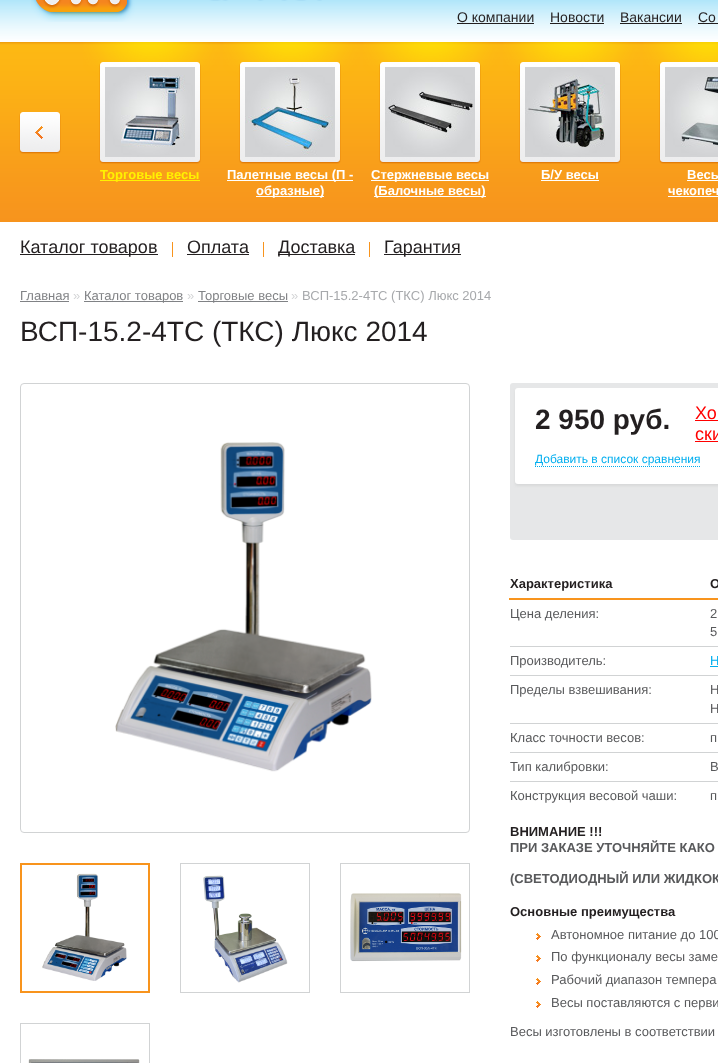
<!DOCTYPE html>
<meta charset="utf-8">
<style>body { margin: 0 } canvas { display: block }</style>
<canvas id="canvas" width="718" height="1063"></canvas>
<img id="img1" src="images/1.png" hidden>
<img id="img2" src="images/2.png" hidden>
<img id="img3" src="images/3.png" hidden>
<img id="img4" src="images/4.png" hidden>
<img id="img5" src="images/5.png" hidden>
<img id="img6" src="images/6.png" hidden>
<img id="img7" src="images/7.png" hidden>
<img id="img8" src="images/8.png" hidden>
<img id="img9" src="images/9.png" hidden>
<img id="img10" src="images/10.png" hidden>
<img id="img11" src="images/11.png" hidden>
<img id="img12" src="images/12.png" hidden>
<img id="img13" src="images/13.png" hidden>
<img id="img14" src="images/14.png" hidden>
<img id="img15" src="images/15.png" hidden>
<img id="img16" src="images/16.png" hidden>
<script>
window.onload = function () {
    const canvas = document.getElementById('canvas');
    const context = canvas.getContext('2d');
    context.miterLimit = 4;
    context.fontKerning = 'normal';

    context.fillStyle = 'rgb(255, 255, 255)';
    context.fillRect(0, 0, 718, 1063);
    context.drawImage(document.getElementById('img1'), 0, 0, 718, 222);
    context.drawImage(document.getElementById('img2'), 31, 0, 291, 22);
    context.fillStyle = 'rgb(35, 31, 32)';
    context.fillRect(457, 23, 77, 1);
    context.fillRect(550, 23, 54, 1);
    context.fillRect(620, 23, 62, 1);
    context.fillRect(698, 23, 20, 1);
    context.drawImage(document.getElementById('img3'), 19, 112, 42, 42);
    context.drawImage(document.getElementById('img4'), 83, 42, 137, 122);
    context.drawImage(document.getElementById('img5'), 105, 67, 90, 90);
    context.fillStyle = 'rgb(255, 242, 0)';
    context.fillRect(100, 180, 100, 1);
    context.drawImage(document.getElementById('img4'), 223, 42, 137, 122);
    context.drawImage(document.getElementById('img6'), 245, 67, 90, 90);
    context.fillStyle = 'rgb(255, 255, 255)';
    context.fillRect(227, 180, 126, 1);
    context.fillRect(256, 196, 68, 1);
    context.drawImage(document.getElementById('img4'), 363, 42, 137, 122);
    context.drawImage(document.getElementById('img7'), 385, 67, 90, 90);
    context.fillRect(371, 180, 118, 1);
    context.fillRect(374, 196, 112, 1);
    context.drawImage(document.getElementById('img4'), 503, 42, 137, 122);
    context.drawImage(document.getElementById('img8'), 525, 67, 90, 90);
    context.fillRect(541, 180, 58, 1);
    context.drawImage(document.getElementById('img9'), 643, 42, 75, 122);
    context.drawImage(document.getElementById('img10'), 665, 67, 53, 90);
    context.fillRect(687, 180, 31, 1);
    context.fillRect(668, 196, 50, 1);
    context.fillStyle = 'rgb(35, 31, 32)';
    context.fillRect(20, 254, 138, 1);
    context.fillStyle = 'rgb(248, 148, 29)';
    context.fillRect(172, 242, 1, 15);
    context.fillStyle = 'rgb(35, 31, 32)';
    context.fillRect(187, 254, 62, 1);
    context.fillStyle = 'rgb(248, 148, 29)';
    context.fillRect(263, 242, 1, 15);
    context.fillStyle = 'rgb(35, 31, 32)';
    context.fillRect(278, 254, 77, 1);
    context.fillStyle = 'rgb(248, 148, 29)';
    context.fillRect(369, 242, 1, 15);
    context.fillStyle = 'rgb(35, 31, 32)';
    context.fillRect(384, 254, 77, 1);
    context.fillStyle = 'rgb(128, 130, 133)';
    context.fillRect(20, 301, 49, 1);
    context.fillRect(84, 301, 99, 1);
    context.fillRect(198, 301, 90, 1);
    context.beginPath();
    context.roundRect(20.5, 383.5, 449, 449, 3.5);
    context.strokeStyle = 'rgb(209, 211, 212)';
    context.stroke();
    context.drawImage(document.getElementById('img11'), 115, 442, 257, 330);
    context.strokeStyle = 'rgb(248, 148, 29)';
    context.lineWidth = 2;
    context.strokeRect(21, 864, 128, 128);
    context.drawImage(document.getElementById('img12'), 42, 873, 85, 108);
    context.strokeStyle = 'rgb(209, 211, 212)';
    context.lineWidth = 1;
    context.strokeRect(180.5, 863.5, 129, 129);
    context.drawImage(document.getElementById('img13'), 203, 875, 85, 108);
    context.strokeRect(340.5, 863.5, 129, 129);
    context.drawImage(document.getElementById('img14'), 350, 893, 112, 69);
    context.strokeRect(20.5, 1023.5, 129, 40);
    context.drawImage(document.getElementById('img15'), 28, 1059, 112, 4);
    context.fillStyle = 'rgb(230, 231, 232)';
    context.beginPath();
    context.roundRect(510, 383, 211, 157, 3);
    context.fill();
    context.fillStyle = 'rgb(216, 217, 218)';
    context.filter = 'blur(1px)';
    context.beginPath();
    context.roundRect(515, 390, 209, 96, 3);
    context.fill();
    context.filter = 'none';
    context.fillStyle = 'rgb(255, 255, 255)';
    context.beginPath();
    context.roundRect(515, 388, 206, 96, 3);
    context.fill();
    context.fillStyle = 'rgb(255, 0, 0)';
    context.fillRect(695, 420, 23, 1);
    context.fillRect(695, 441, 23, 1);
    context.beginPath();
    context.moveTo(535, 466.5);
    context.lineTo(700, 466.5);
    context.strokeStyle = 'rgb(0, 174, 239)';
    context.setLineDash([1, 1]);
    context.stroke();
    context.fillStyle = 'rgb(248, 148, 29)';
    context.fillRect(509, 598, 209, 2);
    context.fillStyle = 'rgb(209, 211, 212)';
    context.fillRect(510, 646, 208, 1);
    context.fillStyle = 'rgb(0, 174, 239)';
    context.fillRect(710, 666, 8, 1);
    context.fillStyle = 'rgb(209, 211, 212)';
    context.fillRect(510, 675, 208, 1);
    context.fillRect(510, 723, 208, 1);
    context.fillRect(510, 752, 208, 1);
    context.fillRect(510, 781, 208, 1);
    context.drawImage(document.getElementById('img16'), 536, 933, 5, 7);
    context.drawImage(document.getElementById('img16'), 536, 955, 5, 7);
    context.drawImage(document.getElementById('img16'), 536, 978, 5, 7);
    context.drawImage(document.getElementById('img16'), 536, 1001, 5, 7);
    context.font = '14px Liberation Sans';
    context.fillStyle = 'rgb(35, 31, 32)';
    context.fillText('О компании', 457, 22);
    context.fillText('Новости', 550, 22);
    context.fillText('Вакансии', 620, 22);
    context.fillText('Со', 698, 22);
    context.font = 'bold 13px Liberation Sans';
    context.fillStyle = 'rgb(255, 242, 0)';
    context.fillText('Торговые весы', 100, 179);
    context.fillStyle = 'rgb(255, 255, 255)';
    context.fillText('Палетные весы (П -', 227, 179);
    context.fillText('образные)', 256, 195);
    context.fillText('Стержневые весы', 371, 179);
    context.fillText('(Балочные весы)', 374, 195);
    context.fillText('Б/У весы', 541, 179);
    context.fillText('Весы', 687, 179);
    context.fillText('чекопеч', 668, 195);
    context.font = '18px Liberation Sans';
    context.fillStyle = 'rgb(35, 31, 32)';
    context.fillText('Каталог товаров', 20, 253);
    context.fillText('Оплата', 187, 253);
    context.fillText('Доставка', 278, 253);
    context.fillText('Гарантия', 384, 253);
    context.font = '13px Liberation Sans';
    context.fillStyle = 'rgb(128, 130, 133)';
    context.fillText('Главная', 20, 300);
    context.fillStyle = 'rgb(210, 211, 213)';
    context.fillText('»', 73, 300);
    context.fillStyle = 'rgb(128, 130, 133)';
    context.fillText('Каталог товаров', 84, 300);
    context.fillStyle = 'rgb(210, 211, 213)';
    context.fillText('»', 187, 300);
    context.fillStyle = 'rgb(128, 130, 133)';
    context.fillText('Торговые весы', 198, 300);
    context.fillStyle = 'rgb(210, 211, 213)';
    context.fillText('»', 291, 300);
    context.fillStyle = 'rgb(167, 169, 172)';
    context.fillText('ВСП-15.2-4ТС (ТКС) Люкс 2014', 302, 300);
    context.font = '28px Liberation Sans';
    context.fillStyle = 'rgb(35, 31, 32)';
    context.fillText('ВСП-15.2-4ТС (ТКС) Люкс 2014', 20, 341);
    context.font = 'bold 28px Liberation Sans';
    context.fillText('2 950 руб.', 535, 429);
    context.font = '18px Liberation Sans';
    context.fillStyle = 'rgb(255, 0, 0)';
    context.fillText('Хо', 695, 419);
    context.fillText('cки', 695, 440);
    context.font = '12px Liberation Sans';
    context.fillStyle = 'rgb(0, 174, 239)';
    context.fillText('Добавить в список сравнения', 535, 463);
    context.font = 'bold 13px Liberation Sans';
    context.fillStyle = 'rgb(35, 31, 32)';
    context.fillText('Характеристика', 510, 588);
    context.fillText('О', 710, 588);
    context.font = '13px Liberation Sans';
    context.fillStyle = 'rgb(88, 89, 91)';
    context.fillText('Цена деления:', 510, 618);
    context.fillText('2', 710, 618);
    context.fillText('5', 710, 636);
    context.fillText('Производитель:', 510, 665);
    context.fillStyle = 'rgb(0, 174, 239)';
    context.fillText('Н', 710, 665);
    context.fillStyle = 'rgb(88, 89, 91)';
    context.fillText('Пределы взвешивания:', 510, 694);
    context.fillText('Н', 710, 694);
    context.fillText('Н', 710, 713);
    context.fillText('Класс точности весов:', 510, 742);
    context.fillText('п', 710, 742);
    context.fillText('Тип калибровки:', 510, 771);
    context.fillText('В', 710, 771);
    context.fillText('Конструкция весовой чаши:', 510, 800);
    context.fillText('п', 710, 800);
    context.font = 'bold 13px Liberation Sans';
    context.fillStyle = 'rgb(35, 31, 32)';
    context.fillText('ВНИМАНИЕ !!!', 510, 836);
    context.fillStyle = 'rgb(88, 89, 91)';
    context.fillText('ПРИ ЗАКАЗЕ УТОЧНЯЙТЕ КАКО', 510, 852);
    context.fillText('(СВЕТОДИОДНЫЙ ИЛИ ЖИДКОК', 510, 883);
    context.fillStyle = 'rgb(35, 31, 32)';
    context.fillText('Основные преимущества', 510, 916);
    context.font = '13px Liberation Sans';
    context.fillStyle = 'rgb(88, 89, 91)';
    context.fillText('Автономное питание до 100', 551, 939);
    context.fillText('По функционалу весы заме', 551, 961);
    context.fillText('Рабочий диапазон темпера', 551, 984);
    context.fillText('Весы поставляются с перви', 551, 1007);
    context.fillText('Весы изготовлены в соответствии', 510, 1036);
};
</script>
